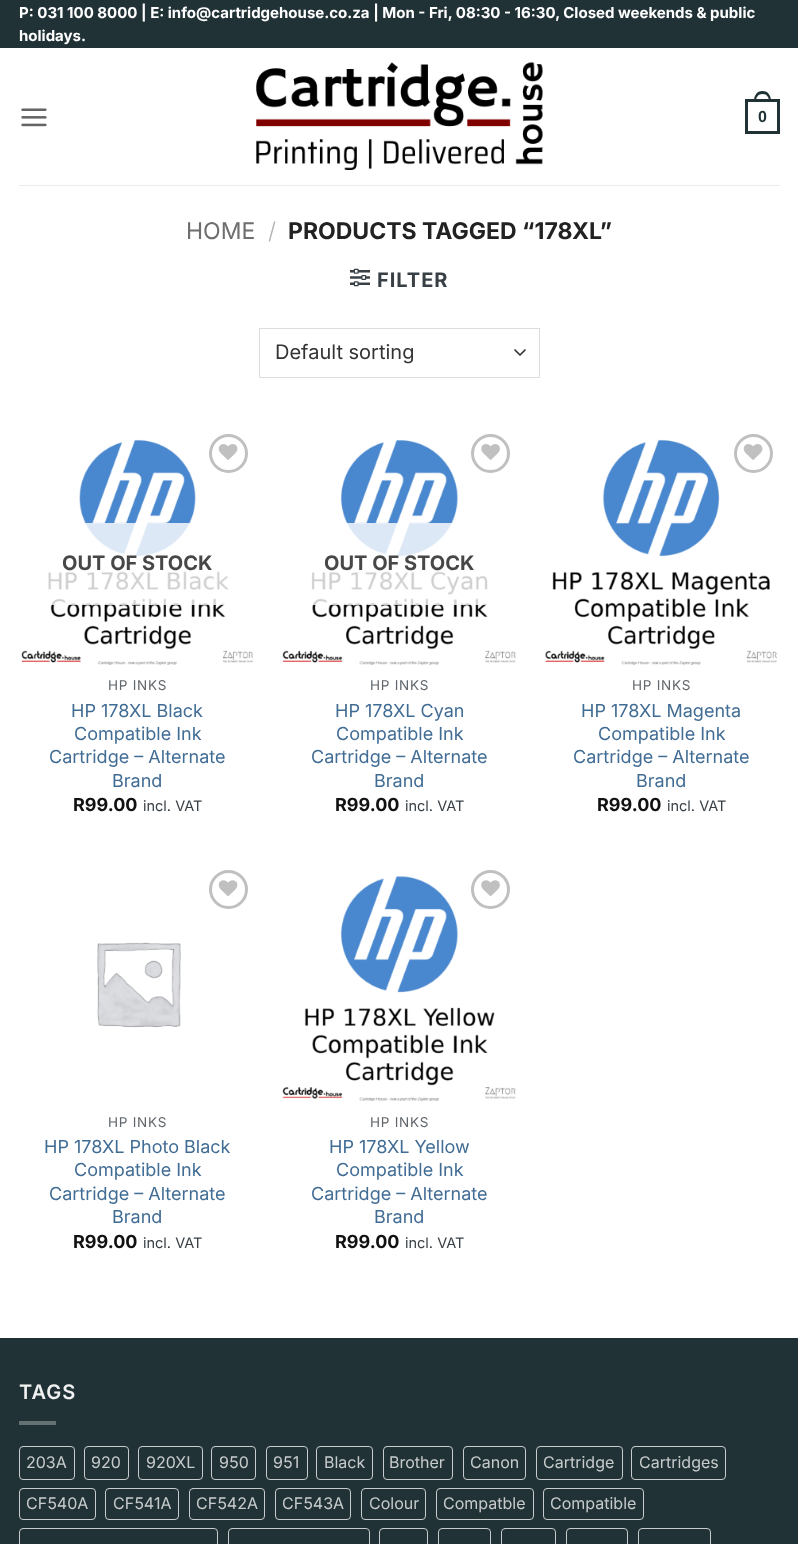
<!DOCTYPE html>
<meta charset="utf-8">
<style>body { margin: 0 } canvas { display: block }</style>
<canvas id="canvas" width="798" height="1544"></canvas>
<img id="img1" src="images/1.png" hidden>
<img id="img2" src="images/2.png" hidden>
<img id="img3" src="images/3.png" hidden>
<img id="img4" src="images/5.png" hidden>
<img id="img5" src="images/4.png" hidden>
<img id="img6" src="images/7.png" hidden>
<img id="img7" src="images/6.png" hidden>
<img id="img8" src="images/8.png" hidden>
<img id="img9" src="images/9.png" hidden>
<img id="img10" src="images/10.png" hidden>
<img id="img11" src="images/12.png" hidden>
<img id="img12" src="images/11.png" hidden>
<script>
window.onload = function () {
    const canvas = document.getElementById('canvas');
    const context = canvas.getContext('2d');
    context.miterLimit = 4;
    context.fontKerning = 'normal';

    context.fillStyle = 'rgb(255, 255, 255)';
    context.fillRect(0, 0, 798, 1544);
    context.fillStyle = 'rgb(33, 50, 54)';
    context.fillRect(0, 0, 798, 48);
    context.drawImage(document.getElementById('img1'), 21, 108, 26, 19);
    context.drawImage(document.getElementById('img2'), 256, 62, 287, 108);
    context.strokeStyle = 'rgb(33, 50, 54)';
    context.lineWidth = 3;
    context.strokeRect(746.5, 100.5, 32, 32);
    context.beginPath();
    context.moveTo(762.5, 91);
    context.bezierCurveTo(768.5, 91, 771, 96, 771, 101);
    context.lineTo(754, 101);
    context.bezierCurveTo(754, 96, 756.5, 91, 762.5, 91);
    context.closePath();
    context.moveTo(762.5, 94);
    context.bezierCurveTo(767, 94, 769, 97.5, 769, 101);
    context.lineTo(756, 101);
    context.bezierCurveTo(756, 97.5, 758, 94, 762.5, 94);
    context.closePath();
    context.fill('evenodd');
    context.fillStyle = 'rgb(235, 236, 237)';
    context.fillRect(19, 185, 761, 1);
    context.drawImage(document.getElementById('img3'), 350, 268, 20, 19);
    context.beginPath();
    context.moveTo(515, 350);
    context.lineTo(520, 355);
    context.lineTo(525, 350);
    context.strokeStyle = 'rgb(51, 51, 51)';
    context.lineWidth = 1.7;
    context.lineCap = 'round';
    context.lineJoin = 'round';
    context.stroke();
    context.strokeStyle = 'rgb(221, 221, 221)';
    context.lineWidth = 1;
    context.lineJoin = 'miter';
    context.strokeRect(259.5, 328.5, 280, 49);
    context.drawImage(document.getElementById('img4'), 21, 439, 232, 226);
    context.beginPath();
    context.arc(228.5, 453.5, 18, 0, 2 * Math.PI);
    context.strokeStyle = 'rgb(192, 192, 192)';
    context.lineWidth = 3;
    context.stroke();
    context.drawImage(document.getElementById('img5'), 218, 444, 20, 16);
    context.fillStyle = 'rgba(255, 255, 255, 0.81)';
    context.fillRect(48, 523, 181, 82);
    context.drawImage(document.getElementById('img6'), 282, 439, 234, 226);
    context.beginPath();
    context.arc(490.5, 453.5, 18, 0, 2 * Math.PI);
    context.stroke();
    context.drawImage(document.getElementById('img7'), 481, 444, 19, 16);
    context.fillRect(311, 523, 177, 82);
    context.drawImage(document.getElementById('img8'), 545, 439, 232, 226);
    context.beginPath();
    context.arc(753.5, 453.5, 18, 0, 2 * Math.PI);
    context.stroke();
    context.drawImage(document.getElementById('img5'), 743, 444, 20, 16);
    context.beginPath();
    context.arc(228.5, 889.5, 18, 0, 2 * Math.PI);
    context.stroke();
    context.drawImage(document.getElementById('img9'), 218, 880, 20, 17);
    context.drawImage(document.getElementById('img10'), 97, 942, 84, 86);
    context.drawImage(document.getElementById('img11'), 282, 876, 234, 225);
    context.beginPath();
    context.arc(490.5, 889.5, 18, 0, 2 * Math.PI);
    context.stroke();
    context.drawImage(document.getElementById('img12'), 481, 880, 19, 17);
    context.fillStyle = 'rgb(33, 50, 54)';
    context.fillRect(0, 1339, 798, 205);
    context.fillStyle = 'rgb(31, 48, 51)';
    context.fillRect(0, 1338, 798, 1);
    context.fillStyle = 'rgb(100, 112, 114)';
    context.fillRect(19, 1421, 37, 4);
    context.beginPath();
    context.roundRect(19.5, 1446.5, 55, 33, 3.5);
    context.strokeStyle = 'rgb(199, 203, 204)';
    context.lineWidth = 1;
    context.stroke();
    context.beginPath();
    context.roundRect(84.5, 1446.5, 44, 33, 3.5);
    context.stroke();
    context.beginPath();
    context.roundRect(138.5, 1446.5, 64, 33, 3.5);
    context.stroke();
    context.beginPath();
    context.roundRect(211.5, 1446.5, 44, 33, 3.5);
    context.stroke();
    context.beginPath();
    context.roundRect(266.5, 1446.5, 41, 33, 3.5);
    context.stroke();
    context.beginPath();
    context.roundRect(316.5, 1446.5, 56, 33, 3.5);
    context.stroke();
    context.beginPath();
    context.roundRect(383.5, 1446.5, 69, 33, 3.5);
    context.stroke();
    context.beginPath();
    context.roundRect(463.5, 1446.5, 62, 33, 3.5);
    context.stroke();
    context.beginPath();
    context.roundRect(536.5, 1446.5, 86, 33, 3.5);
    context.stroke();
    context.beginPath();
    context.roundRect(631.5, 1446.5, 94, 33, 3.5);
    context.stroke();
    context.beginPath();
    context.roundRect(19.5, 1488.5, 76, 31, 3.5);
    context.stroke();
    context.beginPath();
    context.roundRect(105.5, 1488.5, 73, 31, 3.5);
    context.stroke();
    context.beginPath();
    context.roundRect(189.5, 1488.5, 75, 31, 3.5);
    context.stroke();
    context.beginPath();
    context.roundRect(275.5, 1488.5, 75, 31, 3.5);
    context.stroke();
    context.beginPath();
    context.roundRect(361.5, 1488.5, 64, 31, 3.5);
    context.stroke();
    context.beginPath();
    context.roundRect(436.5, 1488.5, 97, 31, 3.5);
    context.stroke();
    context.beginPath();
    context.roundRect(543.5, 1488.5, 100, 31, 3.5);
    context.stroke();
    context.beginPath();
    context.roundRect(19.5, 1528.5, 198, 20, 3.5);
    context.stroke();
    context.beginPath();
    context.roundRect(228.5, 1528.5, 141, 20, 3.5);
    context.stroke();
    context.beginPath();
    context.roundRect(379.5, 1528.5, 48, 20, 3.5);
    context.stroke();
    context.beginPath();
    context.roundRect(438.5, 1528.5, 52, 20, 3.5);
    context.stroke();
    context.beginPath();
    context.roundRect(501.5, 1528.5, 54, 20, 3.5);
    context.stroke();
    context.beginPath();
    context.roundRect(566.5, 1528.5, 61, 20, 3.5);
    context.stroke();
    context.beginPath();
    context.roundRect(638.5, 1528.5, 72, 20, 3.5);
    context.stroke();
    context.font = 'bold 15px Inter';
    context.fillStyle = 'rgb(255, 255, 255)';
    context.fillText('P: 031 100 8000 | E: info@cartridgehouse.co.za | Mon - Fri, 08:30 - 16:30, Closed weekends & public', 19, 18);
    context.fillText('holidays.', 19, 41);
    context.font = 'bold 16px Liberation Sans';
    context.fillStyle = 'rgb(33, 50, 54)';
    context.fillText('0', 758, 122);
    context.font = '23px Inter';
    context.fillStyle = 'rgb(110, 110, 110)';
    context.fillText('HOME', 186, 239);
    context.font = '300 23px Inter';
    context.fillStyle = 'rgb(178, 178, 178)';
    context.fillText('/', 268, 239);
    context.font = 'bold 23px Inter';
    context.fillStyle = 'rgb(34, 34, 34)';
    context.fillText('PRODUCTS TAGGED “178XL”', 288, 239);
    context.letterSpacing = '1px';
    context.font = 'bold 20px Inter';
    context.fillStyle = 'rgb(56, 64, 70)';
    context.fillText('FILTER', 377, 287);
    context.letterSpacing = '0px';
    context.font = '20px Inter';
    context.fillStyle = 'rgb(51, 51, 51)';
    context.fillText('Default sorting', 275, 359);
    context.font = 'bold 20px Inter';
    context.fillStyle = 'rgb(71, 71, 71)';
    context.fillText('OUT OF STOCK', 62, 570);
    context.letterSpacing = '0.75px';
    context.font = '13.5px Inter';
    context.fillStyle = 'rgb(96, 102, 107)';
    context.fillText('HP INKS', 108, 690);
    context.letterSpacing = '0px';
    context.font = '18px Inter';
    context.fillStyle = 'rgb(65, 108, 148)';
    context.fillText('HP 178XL Black', 71, 717);
    context.fillText('Compatible Ink', 74, 740);
    context.fillText('Cartridge – Alternate', 49, 763);
    context.fillText('Brand', 112, 787);
    context.font = 'bold 18px Inter';
    context.fillStyle = 'rgb(17, 17, 17)';
    context.fillText('R99.00', 73, 811);
    context.font = '14.5px Inter';
    context.fillStyle = 'rgb(56, 64, 70)';
    context.fillText('incl. VAT', 143, 811);
    context.font = 'bold 20px Inter';
    context.fillStyle = 'rgb(71, 71, 71)';
    context.fillText('OUT OF STOCK', 324, 570);
    context.letterSpacing = '0.75px';
    context.font = '13.5px Inter';
    context.fillStyle = 'rgb(96, 102, 107)';
    context.fillText('HP INKS', 370, 690);
    context.letterSpacing = '0px';
    context.font = '18px Inter';
    context.fillStyle = 'rgb(65, 108, 148)';
    context.fillText('HP 178XL Cyan', 335, 717);
    context.fillText('Compatible Ink', 336, 740);
    context.fillText('Cartridge – Alternate', 311, 763);
    context.fillText('Brand', 374, 787);
    context.font = 'bold 18px Inter';
    context.fillStyle = 'rgb(17, 17, 17)';
    context.fillText('R99.00', 335, 811);
    context.font = '14.5px Inter';
    context.fillStyle = 'rgb(56, 64, 70)';
    context.fillText('incl. VAT', 405, 811);
    context.letterSpacing = '0.75px';
    context.font = '13.5px Inter';
    context.fillStyle = 'rgb(96, 102, 107)';
    context.fillText('HP INKS', 632, 690);
    context.letterSpacing = '0px';
    context.font = '18px Inter';
    context.fillStyle = 'rgb(65, 108, 148)';
    context.fillText('HP 178XL Magenta', 581, 717);
    context.fillText('Compatible Ink', 598, 740);
    context.fillText('Cartridge – Alternate', 573, 763);
    context.fillText('Brand', 636, 787);
    context.font = 'bold 18px Inter';
    context.fillStyle = 'rgb(17, 17, 17)';
    context.fillText('R99.00', 597, 811);
    context.font = '14.5px Inter';
    context.fillStyle = 'rgb(56, 64, 70)';
    context.fillText('incl. VAT', 667, 811);
    context.letterSpacing = '0.75px';
    context.font = '13.5px Inter';
    context.fillStyle = 'rgb(96, 102, 107)';
    context.fillText('HP INKS', 108, 1127);
    context.letterSpacing = '0px';
    context.font = '18px Inter';
    context.fillStyle = 'rgb(65, 108, 148)';
    context.fillText('HP 178XL Photo Black', 44, 1153);
    context.fillText('Compatible Ink', 74, 1176);
    context.fillText('Cartridge – Alternate', 49, 1200);
    context.fillText('Brand', 112, 1223);
    context.font = 'bold 18px Inter';
    context.fillStyle = 'rgb(17, 17, 17)';
    context.fillText('R99.00', 73, 1248);
    context.font = '14.5px Inter';
    context.fillStyle = 'rgb(56, 64, 70)';
    context.fillText('incl. VAT', 143, 1248);
    context.letterSpacing = '0.75px';
    context.font = '13.5px Inter';
    context.fillStyle = 'rgb(96, 102, 107)';
    context.fillText('HP INKS', 370, 1127);
    context.letterSpacing = '0px';
    context.font = '18px Inter';
    context.fillStyle = 'rgb(65, 108, 148)';
    context.fillText('HP 178XL Yellow', 329, 1153);
    context.fillText('Compatible Ink', 336, 1176);
    context.fillText('Cartridge – Alternate', 311, 1200);
    context.fillText('Brand', 374, 1223);
    context.font = 'bold 18px Inter';
    context.fillStyle = 'rgb(17, 17, 17)';
    context.fillText('R99.00', 335, 1248);
    context.font = '14.5px Inter';
    context.fillStyle = 'rgb(56, 64, 70)';
    context.fillText('incl. VAT', 405, 1248);
    context.letterSpacing = '1px';
    context.font = '600 20px Inter';
    context.fillStyle = 'rgb(241, 241, 241)';
    context.fillText('TAGS', 19, 1399);
    context.letterSpacing = '0px';
    context.font = '16px Inter';
    context.fillStyle = 'rgb(199, 203, 204)';
    context.fillText('203A', 26, 1468);
    context.fillText('920', 91, 1468);
    context.fillText('920XL', 146, 1468);
    context.fillText('950', 219, 1468);
    context.fillText('951', 273, 1468);
    context.fillText('Black', 324, 1468);
    context.fillText('Brother', 389, 1468);
    context.fillText('Canon', 470, 1468);
    context.fillText('Cartridge', 543, 1468);
    context.fillText('Cartridges', 639, 1468);
    context.fillText('CF540A', 26, 1509);
    context.fillText('CF541A', 113, 1509);
    context.fillText('CF542A', 196, 1509);
    context.fillText('CF543A', 282, 1509);
    context.fillText('Colour', 369, 1509);
    context.fillText('Compatble', 443, 1509);
    context.fillText('Compatible', 550, 1509);
};
</script>
